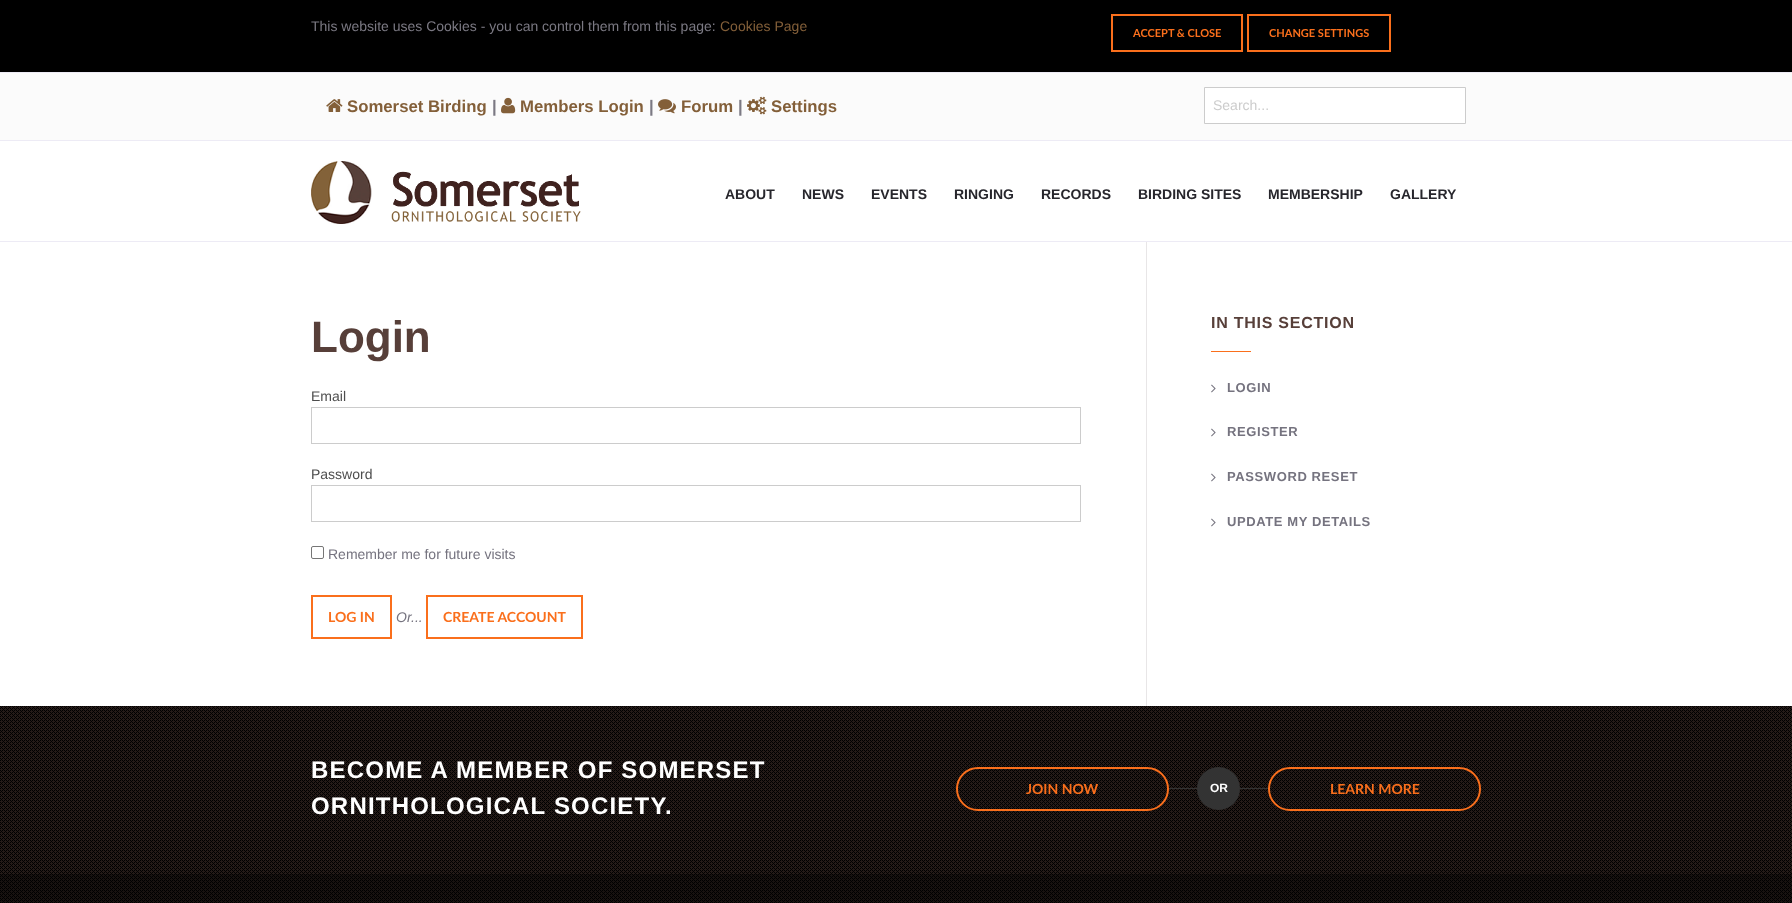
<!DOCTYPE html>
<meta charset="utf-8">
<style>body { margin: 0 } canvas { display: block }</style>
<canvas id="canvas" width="1792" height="903"></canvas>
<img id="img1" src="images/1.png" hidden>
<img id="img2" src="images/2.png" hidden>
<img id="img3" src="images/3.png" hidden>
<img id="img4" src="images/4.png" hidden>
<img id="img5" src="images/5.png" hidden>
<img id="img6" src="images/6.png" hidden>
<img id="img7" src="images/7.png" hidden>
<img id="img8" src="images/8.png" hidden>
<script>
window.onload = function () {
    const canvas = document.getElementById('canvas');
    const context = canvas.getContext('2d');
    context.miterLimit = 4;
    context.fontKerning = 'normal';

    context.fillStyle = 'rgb(255, 255, 255)';
    context.fillRect(0, 0, 1792, 903);
    context.fillStyle = 'rgb(0, 0, 0)';
    context.fillRect(0, 0, 1792, 72);
    context.fillStyle = 'rgb(237, 235, 245)';
    context.fillRect(0, 72, 1792, 1);
    context.strokeStyle = 'rgb(250, 111, 28)';
    context.lineWidth = 2;
    context.strokeRect(1112, 15, 130, 36);
    context.strokeRect(1248, 15, 142, 36);
    context.fillStyle = 'rgb(251, 251, 251)';
    context.fillRect(0, 73, 1792, 67);
    context.fillStyle = 'rgb(237, 235, 245)';
    context.fillRect(0, 140, 1792, 1);
    context.drawImage(document.getElementById('img1'), 326, 99, 17, 13);
    context.drawImage(document.getElementById('img2'), 501, 97, 15, 17);
    context.drawImage(document.getElementById('img3'), 658, 99, 18, 15);
    context.drawImage(document.getElementById('img4'), 747, 96, 20, 19);
    context.fillStyle = 'rgb(255, 255, 255)';
    context.beginPath();
    context.rect(1204.5, 87.5, 261, 36);
    context.fill();
    context.strokeStyle = 'rgb(204, 204, 204)';
    context.lineWidth = 1;
    context.stroke();
    context.fillStyle = 'rgb(237, 235, 245)';
    context.fillRect(0, 241, 1792, 1);
    context.drawImage(document.getElementById('img5'), 311, 161, 270, 63);
    context.strokeRect(311.5, 407.5, 769, 36);
    context.strokeRect(311.5, 485.5, 769, 36);
    context.beginPath();
    context.roundRect(311.5, 546.5, 12, 12, 1.5);
    context.strokeStyle = 'rgb(118, 118, 118)';
    context.stroke();
    context.strokeStyle = 'rgb(250, 111, 28)';
    context.lineWidth = 2;
    context.strokeRect(312, 596, 79, 42);
    context.strokeRect(427, 596, 155, 42);
    context.fillStyle = 'rgb(232, 230, 231)';
    context.fillRect(1146, 242, 1, 464);
    context.fillStyle = 'rgb(250, 111, 28)';
    context.fillRect(1211, 351, 40, 1);
    context.drawImage(document.getElementById('img6'), 1211, 384, 5, 9);
    context.drawImage(document.getElementById('img6'), 1211, 428, 5, 9);
    context.drawImage(document.getElementById('img6'), 1211, 473, 5, 9);
    context.drawImage(document.getElementById('img6'), 1211, 518, 5, 9);
    context.drawImage(document.getElementById('img7'), 0, 706, 1792, 168);
    context.beginPath();
    context.roundRect(957, 768, 211, 42, 21);
    context.stroke();
    context.fillStyle = 'rgb(51, 51, 51)';
    context.fillRect(1169, 788, 28, 1);
    context.beginPath();
    context.arc(1218.5, 788.5, 21.5, 0, 2 * Math.PI);
    context.fill();
    context.fillRect(1240, 788, 28, 1);
    context.beginPath();
    context.roundRect(1269, 768, 211, 42, 21);
    context.stroke();
    context.drawImage(document.getElementById('img8'), 0, 874, 1792, 29);
    context.font = '14px Liberation Sans';
    context.fillStyle = 'rgb(123, 121, 131)';
    context.fillText('This website uses Cookies - you can control them from this page:', 311, 31);
    context.fillStyle = 'rgb(131, 95, 57)';
    context.fillText('Cookies Page', 720, 31);
    context.font = 'bold 11px Lato';
    context.fillStyle = 'rgb(250, 111, 28)';
    context.fillText('ACCEPT & CLOSE', 1133, 37);
    context.fillText('CHANGE SETTINGS', 1269, 37);
    context.font = 'bold 16.75px Liberation Sans';
    context.fillStyle = 'rgb(131, 95, 57)';
    context.fillText('Somerset Birding', 347, 112);
    context.fillStyle = 'rgb(123, 121, 131)';
    context.fillText('|', 492, 112);
    context.fillStyle = 'rgb(131, 95, 57)';
    context.fillText('Members Login', 520, 112);
    context.fillStyle = 'rgb(123, 121, 131)';
    context.fillText('|', 649, 112);
    context.fillStyle = 'rgb(131, 95, 57)';
    context.fillText('Forum', 681, 112);
    context.fillStyle = 'rgb(123, 121, 131)';
    context.fillText('|', 738, 112);
    context.fillStyle = 'rgb(131, 95, 57)';
    context.fillText('Settings', 771, 112);
    context.font = '14px Liberation Sans';
    context.fillStyle = 'rgb(204, 204, 204)';
    context.fillText('Search...', 1213, 110);
    context.font = 'bold 14px Liberation Sans';
    context.fillStyle = 'rgb(39, 38, 44)';
    context.fillText('ABOUT', 725, 199);
    context.fillText('NEWS', 802, 199);
    context.fillText('EVENTS', 871, 199);
    context.fillText('RINGING', 954, 199);
    context.fillText('RECORDS', 1041, 199);
    context.fillText('BIRDING SITES', 1138, 199);
    context.fillText('MEMBERSHIP', 1268, 199);
    context.fillText('GALLERY', 1390, 199);
    context.font = 'bold 44px Liberation Sans';
    context.fillStyle = 'rgb(87, 63, 57)';
    context.fillText('Login', 311, 352);
    context.font = '14px Liberation Sans';
    context.fillStyle = 'rgb(77, 77, 77)';
    context.fillText('Email', 311, 401);
    context.fillText('Password', 311, 479);
    context.fillStyle = 'rgb(117, 115, 127)';
    context.fillText('Remember me for future visits', 328, 559);
    context.font = 'bold 14px Lato';
    context.fillStyle = 'rgb(250, 111, 28)';
    context.fillText('LOG IN', 328, 622);
    context.font = 'italic 14px Liberation Sans';
    context.fillStyle = 'rgb(117, 115, 127)';
    context.fillText('Or...', 396, 622);
    context.font = 'bold 14px Lato';
    context.fillStyle = 'rgb(250, 111, 28)';
    context.fillText('CREATE ACCOUNT', 443, 622);
    context.letterSpacing = '0.75px';
    context.font = 'bold 16px Liberation Sans';
    context.fillStyle = 'rgb(87, 63, 57)';
    context.fillText('IN THIS SECTION', 1211, 328);
    context.letterSpacing = '0.6px';
    context.font = 'bold 13px Liberation Sans';
    context.fillStyle = 'rgb(117, 115, 127)';
    context.fillText('LOGIN', 1227, 392);
    context.fillText('REGISTER', 1227, 436);
    context.fillText('PASSWORD RESET', 1227, 481);
    context.fillText('UPDATE MY DETAILS', 1227, 526);
    context.letterSpacing = '1.2px';
    context.font = 'bold 24px Liberation Sans';
    context.fillStyle = 'rgb(255, 255, 255)';
    context.fillText('BECOME A MEMBER OF SOMERSET', 311, 778);
    context.fillText('ORNITHOLOGICAL SOCIETY.', 311, 814);
    context.letterSpacing = '0px';
    context.font = 'bold 14px Lato';
    context.fillStyle = 'rgb(250, 111, 28)';
    context.fillText('JOIN NOW', 1026, 794);
    context.font = 'bold 12px Liberation Sans';
    context.fillStyle = 'rgb(255, 255, 255)';
    context.fillText('OR', 1210, 792);
    context.font = 'bold 14px Lato';
    context.fillStyle = 'rgb(250, 111, 28)';
    context.fillText('LEARN MORE', 1330, 794);
};
</script>
